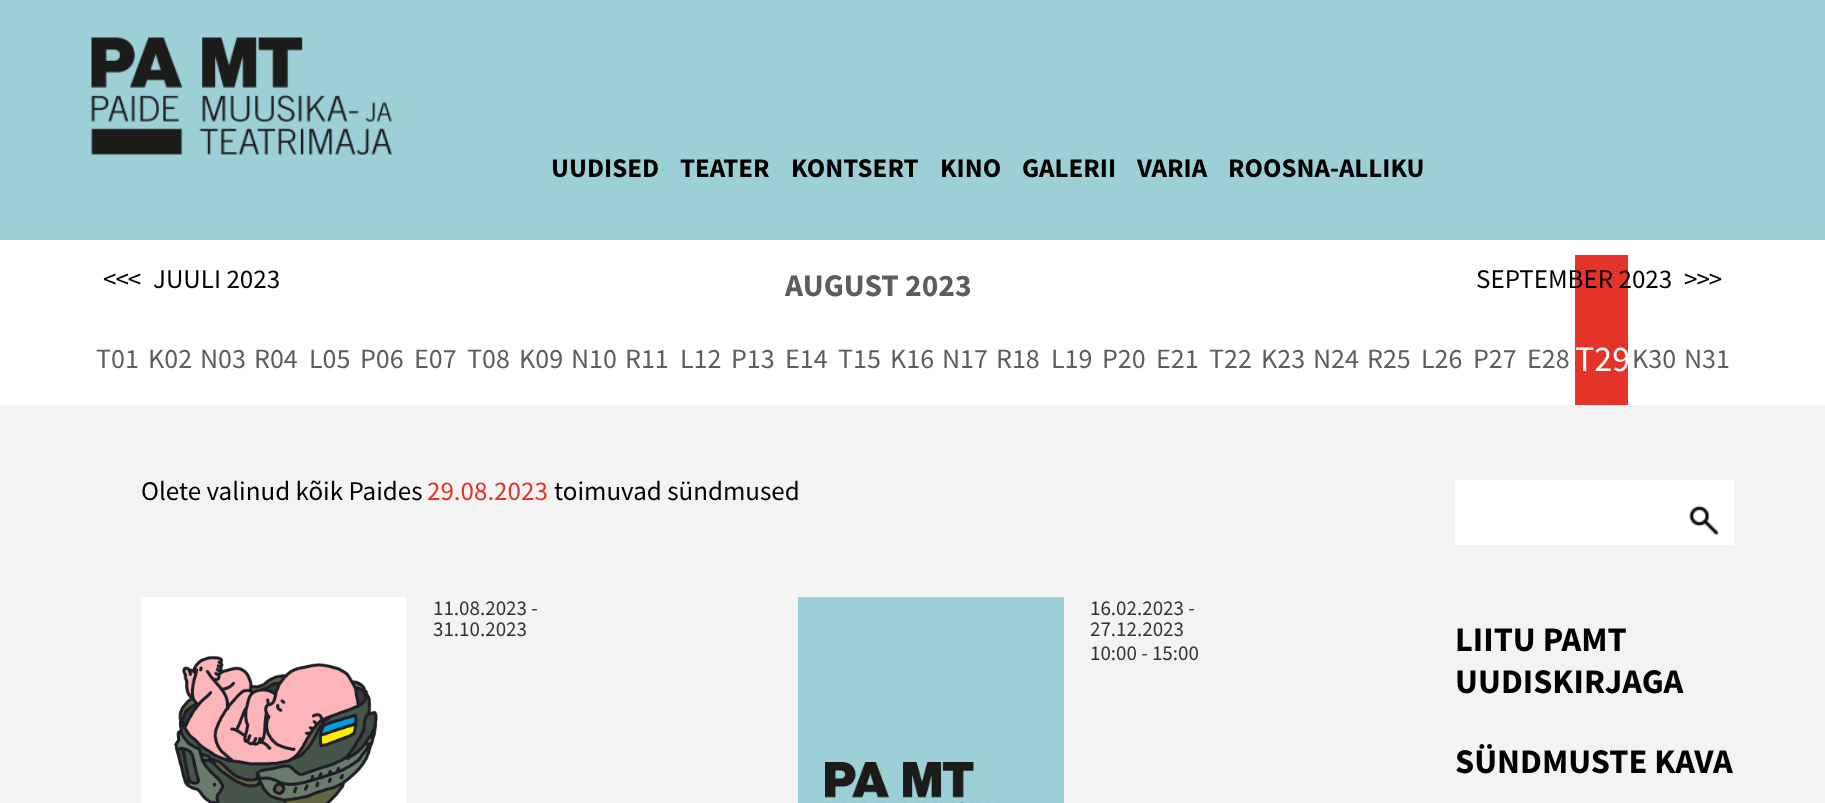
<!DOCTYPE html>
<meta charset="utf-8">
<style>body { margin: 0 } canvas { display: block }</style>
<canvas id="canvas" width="1825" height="803"></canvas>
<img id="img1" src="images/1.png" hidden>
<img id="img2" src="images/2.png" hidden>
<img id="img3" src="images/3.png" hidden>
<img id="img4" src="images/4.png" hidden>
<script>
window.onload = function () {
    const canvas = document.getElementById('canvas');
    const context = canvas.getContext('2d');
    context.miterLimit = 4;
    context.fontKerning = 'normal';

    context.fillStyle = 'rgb(243, 243, 243)';
    context.fillRect(0, 0, 1825, 803);
    context.fillStyle = 'rgb(156, 208, 214)';
    context.fillRect(0, 0, 1825, 240);
    context.drawImage(document.getElementById('img1'), 91, 37, 301, 118);
    context.fillStyle = 'rgb(255, 255, 255)';
    context.fillRect(0, 240, 1825, 165);
    context.fillStyle = 'rgb(228, 51, 41)';
    context.fillRect(1575, 255, 53, 150);
    context.drawImage(document.getElementById('img2'), 141, 597, 266, 206);
    context.fillStyle = 'rgb(156, 208, 214)';
    context.fillRect(798, 597, 266, 206);
    context.drawImage(document.getElementById('img3'), 825, 762, 174, 41);
    context.fillStyle = 'rgb(255, 255, 255)';
    context.fillRect(1455, 480, 279, 65);
    context.drawImage(document.getElementById('img4'), 1689, 505, 30, 31);
    context.font = 'bold 27px Source Sans Pro';
    context.fillStyle = 'rgb(0, 0, 0)';
    context.fillText('UUDISED', 551, 177);
    context.fillText('TEATER', 680, 177);
    context.fillText('KONTSERT', 791, 177);
    context.fillText('KINO', 940, 177);
    context.fillText('GALERII', 1022, 177);
    context.fillText('VARIA', 1137, 177);
    context.fillText('ROOSNA-ALLIKU', 1228, 177);
    context.letterSpacing = '-1px';
    context.font = '27px Source Sans Pro';
    context.fillText('<<<', 103, 288);
    context.letterSpacing = '0px';
    context.fillText('JUULI 2023', 153, 288);
    context.font = 'bold 31.5px Source Sans Pro';
    context.fillStyle = 'rgb(93, 93, 93)';
    context.fillText('AUGUST 2023', 785, 296);
    context.font = '27px Source Sans Pro';
    context.fillStyle = 'rgb(0, 0, 0)';
    context.fillText('SEPTEMBER 2023', 1476, 288);
    context.letterSpacing = '-1px';
    context.fillText('>>>', 1684, 288);
    context.letterSpacing = '0px';
    context.font = '28px Source Sans Pro';
    context.fillStyle = 'rgb(93, 93, 93)';
    context.fillText('T01', 96, 368);
    context.fillText('K02', 148, 368);
    context.fillText('N03', 200, 368);
    context.fillText('R04', 254, 368);
    context.fillText('L05', 309, 368);
    context.fillText('P06', 360, 368);
    context.fillText('E07', 414, 368);
    context.fillText('T08', 467, 368);
    context.fillText('K09', 519, 368);
    context.fillText('N10', 571, 368);
    context.fillText('R11', 625, 368);
    context.fillText('L12', 680, 368);
    context.fillText('P13', 731, 368);
    context.fillText('E14', 785, 368);
    context.fillText('T15', 838, 368);
    context.fillText('K16', 890, 368);
    context.fillText('N17', 942, 368);
    context.fillText('R18', 996, 368);
    context.fillText('L19', 1051, 368);
    context.fillText('P20', 1102, 368);
    context.fillText('E21', 1156, 368);
    context.fillText('T22', 1209, 368);
    context.fillText('K23', 1261, 368);
    context.fillText('N24', 1313, 368);
    context.fillText('R25', 1367, 368);
    context.fillText('L26', 1421, 368);
    context.fillText('P27', 1473, 368);
    context.fillText('E28', 1527, 368);
    context.font = '36px Source Sans Pro';
    context.fillStyle = 'rgb(255, 255, 255)';
    context.fillText('T29', 1575, 371);
    context.font = '28px Source Sans Pro';
    context.fillStyle = 'rgb(93, 93, 93)';
    context.fillText('K30', 1632, 368);
    context.fillText('N31', 1684, 368);
    context.font = '27px Source Sans Pro';
    context.fillStyle = 'rgb(0, 0, 0)';
    context.fillText('Olete valinud kõik Paides', 141, 500);
    context.fillStyle = 'rgb(228, 51, 41)';
    context.fillText('29.08.2023', 427, 500);
    context.fillStyle = 'rgb(0, 0, 0)';
    context.fillText('toimuvad sündmused', 554, 500);
    context.font = '21px Source Sans Pro';
    context.fillStyle = 'rgb(51, 51, 51)';
    context.fillText('11.08.2023 -', 433, 615);
    context.fillText('31.10.2023', 433, 636);
    context.fillText('16.02.2023 -', 1090, 615);
    context.fillText('27.12.2023', 1090, 636);
    context.fillText('10:00 - 15:00', 1090, 660);
    context.font = 'bold 34.5px Source Sans Pro';
    context.fillStyle = 'rgb(0, 0, 0)';
    context.fillText('LIITU PAMT', 1455, 651);
    context.fillText('UUDISKIRJAGA', 1455, 693);
    context.fillText('SÜNDMUSTE KAVA', 1455, 773);
};
</script>
